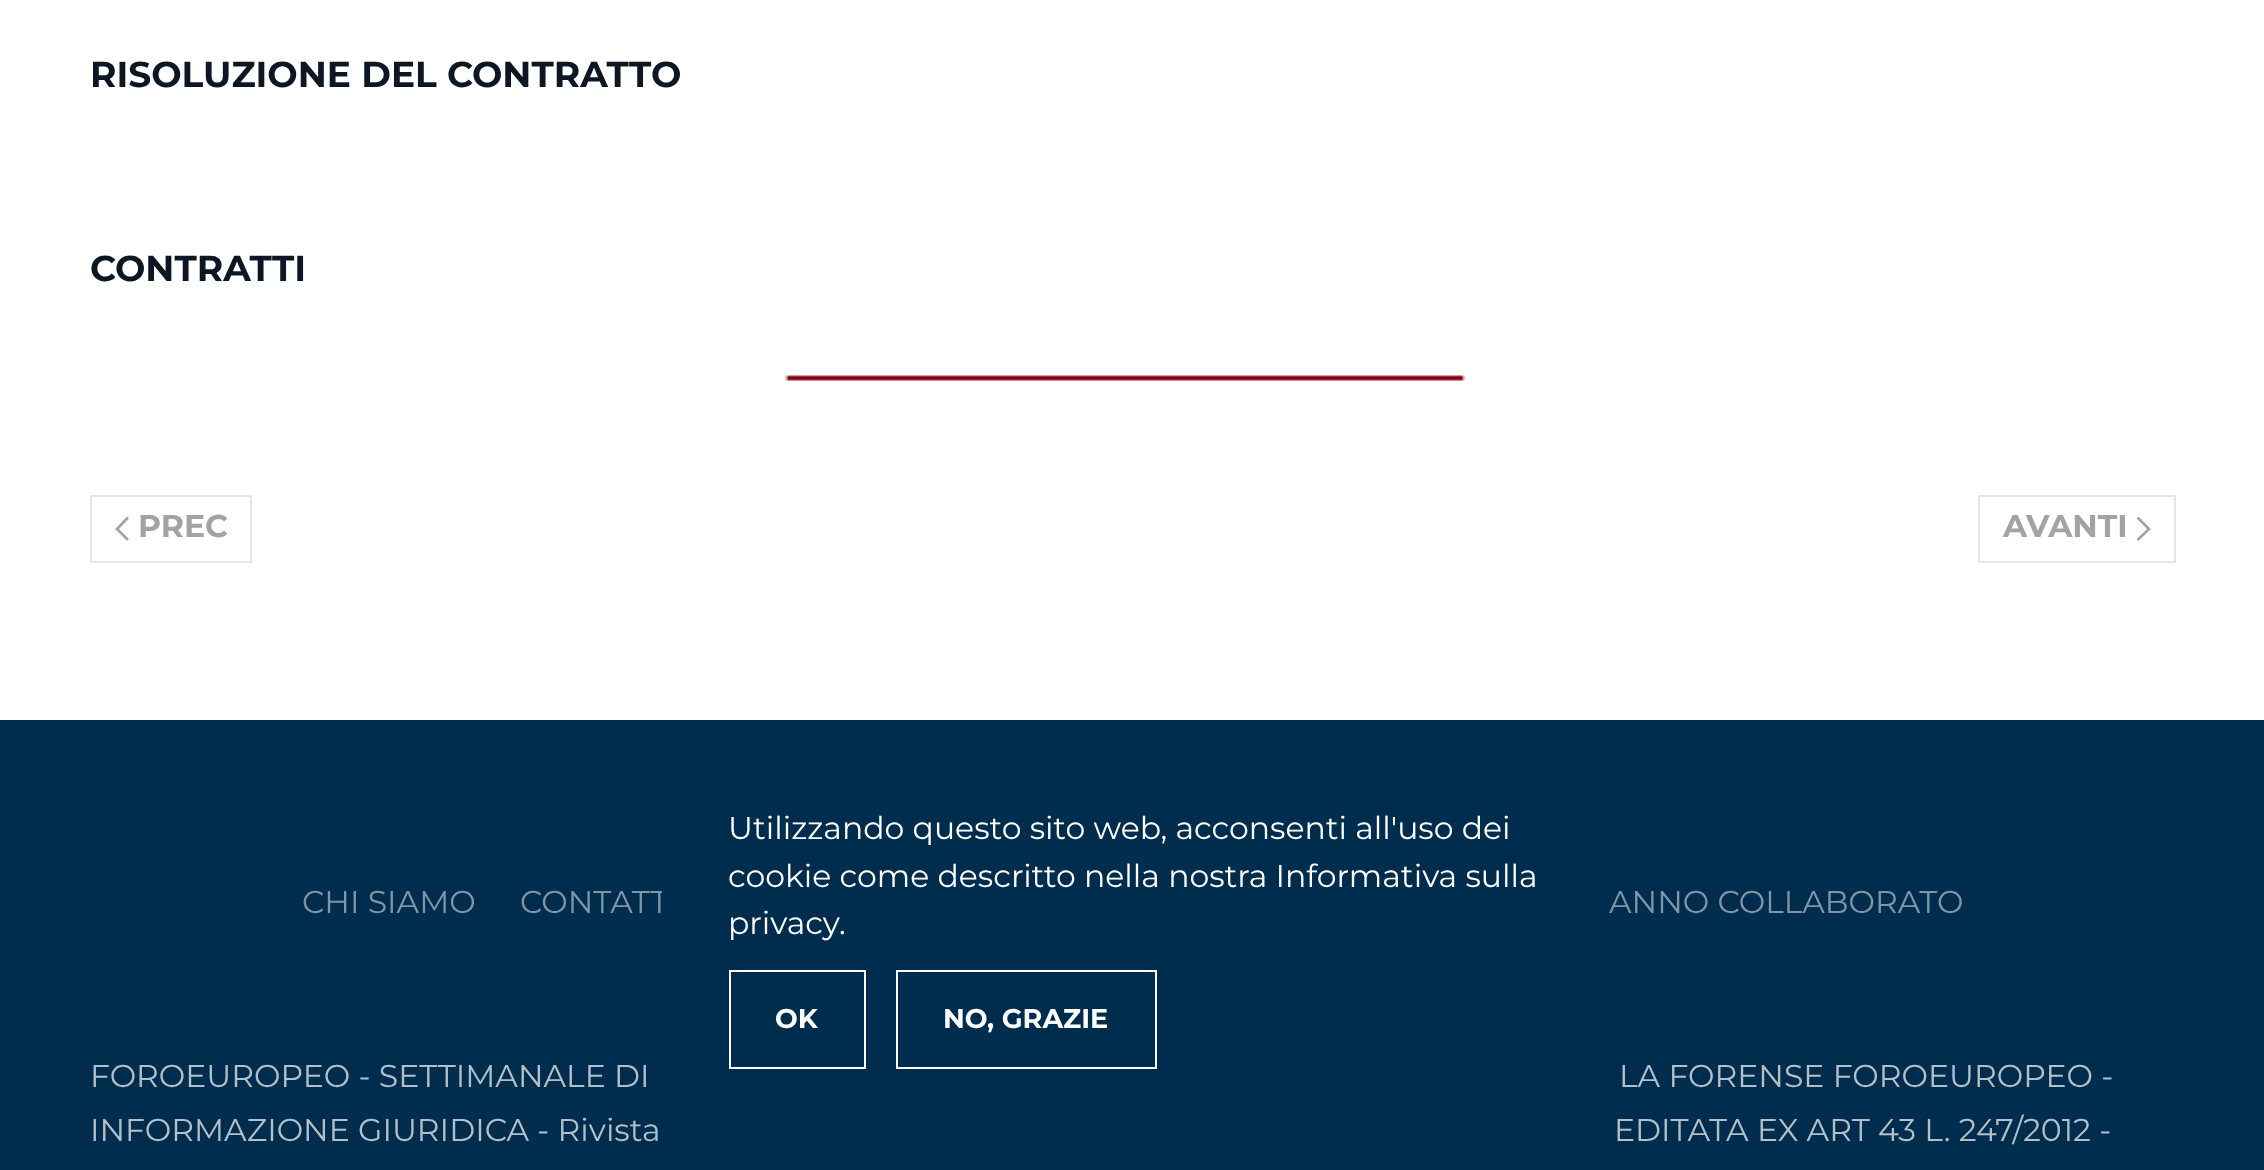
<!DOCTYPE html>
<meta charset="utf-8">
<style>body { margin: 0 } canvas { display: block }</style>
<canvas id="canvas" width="2264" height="1170"></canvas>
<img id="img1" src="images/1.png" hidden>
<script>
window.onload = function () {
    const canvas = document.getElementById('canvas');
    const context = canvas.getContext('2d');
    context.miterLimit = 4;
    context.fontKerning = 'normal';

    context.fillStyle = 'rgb(255, 255, 255)';
    context.fillRect(0, 0, 2264, 1170);
    context.drawImage(document.getElementById('img1'), 784, 375, 682, 6);
    context.strokeStyle = 'rgb(230, 230, 230)';
    context.lineWidth = 2;
    context.strokeRect(91, 496, 160, 66);
    context.beginPath();
    context.moveTo(128, 517.5);
    context.lineTo(117, 529);
    context.lineTo(128, 540);
    context.strokeStyle = 'rgb(163, 163, 163)';
    context.lineWidth = 2.7;
    context.stroke();
    context.strokeStyle = 'rgb(230, 230, 230)';
    context.lineWidth = 2;
    context.strokeRect(1979, 496, 196, 66);
    context.beginPath();
    context.moveTo(2137.5, 517.5);
    context.lineTo(2149, 529);
    context.lineTo(2137.5, 540);
    context.strokeStyle = 'rgb(163, 163, 163)';
    context.lineWidth = 2.7;
    context.stroke();
    context.fillStyle = 'rgb(0, 45, 77)';
    context.fillRect(0, 720, 2264, 450);
    context.strokeStyle = 'rgb(255, 255, 255)';
    context.lineWidth = 2;
    context.strokeRect(730, 971, 135, 97);
    context.strokeRect(897, 971, 259, 97);
    context.font = '100 36px Montserrat';
    context.fillStyle = 'rgb(13, 23, 36)';
    context.fillText('RISOLUZIONE DEL CONTRATTO', 90, 87);
    context.fillText('CONTRATTI', 90, 281);
    context.font = '100 31.5px Montserrat';
    context.fillStyle = 'rgb(163, 163, 163)';
    context.fillText('PREC', 138, 537);
    context.fillText('AVANTI', 2003, 537);
    context.font = '100 31.5px "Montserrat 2"';
    context.fillStyle = 'rgb(128, 150, 166)';
    context.fillText('CHI SIAMO', 302, 913);
    context.fillText('CONTATT', 520, 913);
    context.fillText('ANNO COLLABORATO', 1609, 913);
    context.fillStyle = 'rgb(179, 192, 202)';
    context.fillText('FOROEUROPEO - SETTIMANALE DI', 90, 1087);
    context.fillText('INFORMAZIONE GIURIDICA - Rivista', 90, 1141);
    context.fillText('LA FORENSE FOROEUROPEO -', 1619, 1087);
    context.fillText('EDITATA EX ART 43 L. 247/2012 -', 1614, 1141);
    context.fillStyle = 'rgb(0, 45, 77)';
    context.fillRect(662, 890, 7, 3);
    context.fillStyle = 'rgb(255, 255, 255)';
    context.fillText('Utilizzando questo sito web, acconsenti all\'uso dei', 728, 839);
    context.fillText('cookie come descritto nella nostra Informativa sulla', 728, 887);
    context.fillText('privacy', 728, 934);
    context.fillText('.', 839, 934);
    context.font = '100 27px Montserrat';
    context.fillText('OK', 775, 1028);
    context.fillText('NO, GRAZIE', 943, 1028);
};
</script>
